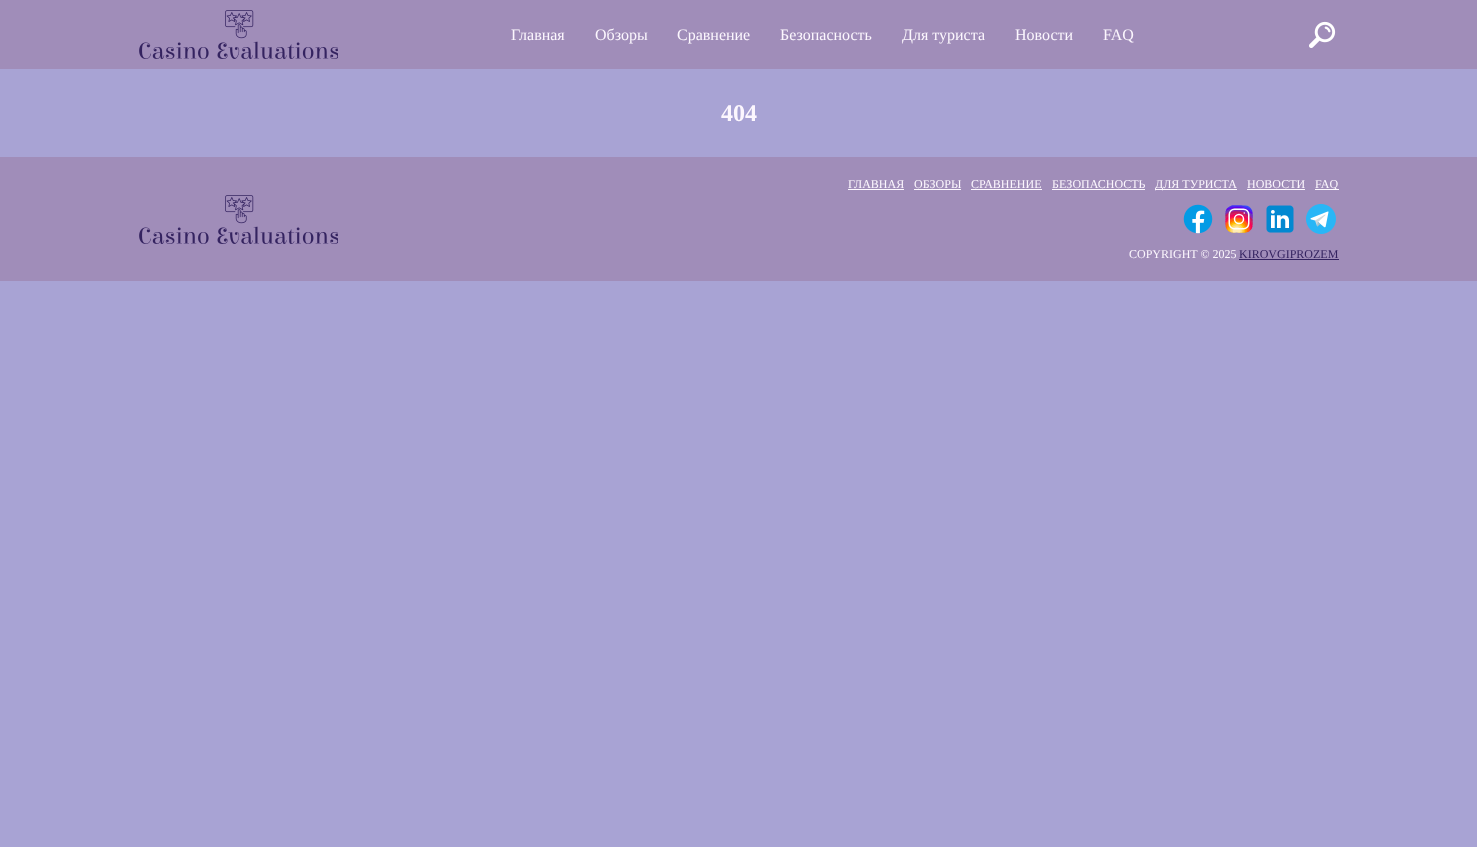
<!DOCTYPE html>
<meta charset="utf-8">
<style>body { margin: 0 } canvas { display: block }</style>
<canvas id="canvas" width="1477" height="847"></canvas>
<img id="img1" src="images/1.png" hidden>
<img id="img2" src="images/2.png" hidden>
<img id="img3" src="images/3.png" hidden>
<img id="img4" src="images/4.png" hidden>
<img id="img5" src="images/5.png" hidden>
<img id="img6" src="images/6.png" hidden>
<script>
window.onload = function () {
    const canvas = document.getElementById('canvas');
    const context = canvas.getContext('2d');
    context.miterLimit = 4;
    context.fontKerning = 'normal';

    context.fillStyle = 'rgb(168, 163, 212)';
    context.fillRect(0, 0, 1477, 847);
    context.fillStyle = 'rgb(160, 141, 185)';
    context.fillRect(0, 0, 1477, 69);
    context.drawImage(document.getElementById('img1'), 139, 10, 199, 49);
    context.drawImage(document.getElementById('img2'), 1309, 21, 27, 27);
    context.fillRect(0, 157, 1477, 124);
    context.drawImage(document.getElementById('img1'), 139, 195, 199, 49);
    context.fillStyle = 'rgb(252, 247, 254)';
    context.fillRect(848, 189, 56, 1);
    context.fillRect(914, 189, 47, 1);
    context.fillRect(971, 189, 71, 1);
    context.fillRect(1052, 189, 93, 1);
    context.fillRect(1155, 189, 82, 1);
    context.fillRect(1247, 189, 58, 1);
    context.fillRect(1315, 189, 24, 1);
    context.drawImage(document.getElementById('img3'), 1183, 204, 30, 30);
    context.drawImage(document.getElementById('img4'), 1225, 205, 28, 28);
    context.drawImage(document.getElementById('img5'), 1266, 205, 28, 28);
    context.drawImage(document.getElementById('img6'), 1306, 204, 30, 30);
    context.fillStyle = 'rgb(52, 35, 96)';
    context.fillRect(1239, 259, 100, 1);
    context.font = '16px Liberation Serif';
    context.fillStyle = 'rgb(252, 247, 254)';
    context.fillText('Главная', 511, 40);
    context.fillText('Обзоры', 595, 40);
    context.fillText('Сравнение', 677, 40);
    context.fillText('Безопасность', 780, 40);
    context.fillText('Для туриста', 902, 40);
    context.fillText('Новости', 1015, 40);
    context.fillText('FAQ', 1103, 40);
    context.font = 'bold 24px Liberation Serif';
    context.fillText('404', 721, 121);
    context.font = '12px Liberation Serif';
    context.fillText('ГЛАВНАЯ', 848, 188);
    context.fillText('ОБЗОРЫ', 914, 188);
    context.fillText('СРАВНЕНИЕ', 971, 188);
    context.fillText('БЕЗОПАСНОСТЬ', 1052, 188);
    context.fillText('ДЛЯ ТУРИСТА', 1155, 188);
    context.fillText('НОВОСТИ', 1247, 188);
    context.fillText('FAQ', 1315, 188);
    context.fillText('COPYRIGHT © 2025', 1129, 258);
    context.fillStyle = 'rgb(52, 35, 96)';
    context.fillText('KIROVGIPROZEM', 1239, 258);
};
</script>
